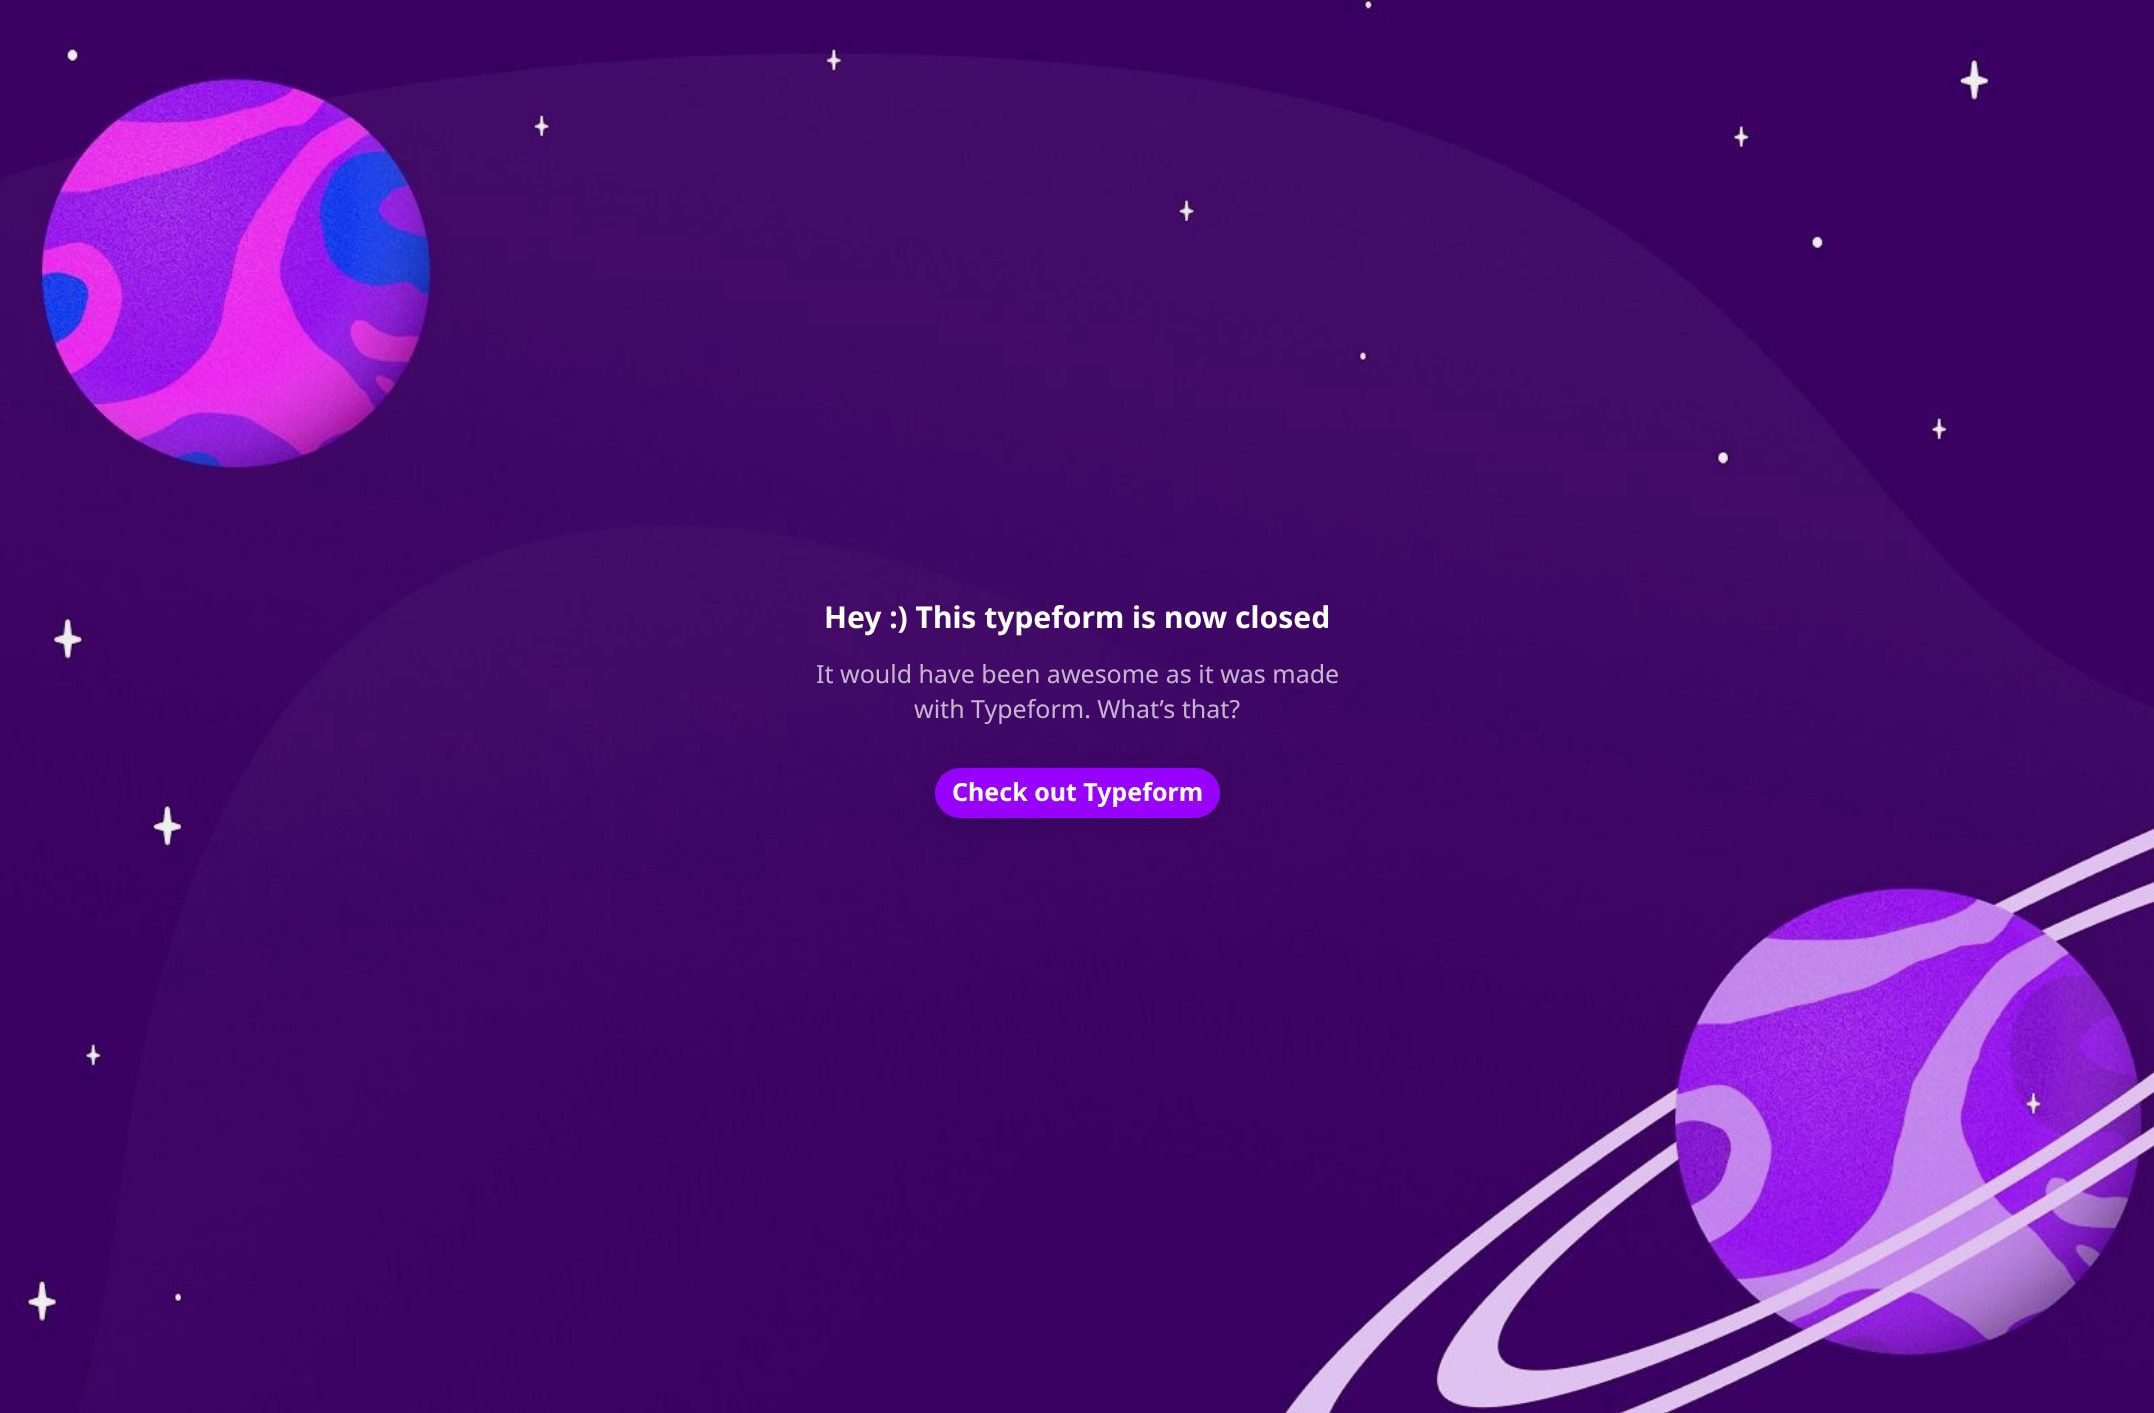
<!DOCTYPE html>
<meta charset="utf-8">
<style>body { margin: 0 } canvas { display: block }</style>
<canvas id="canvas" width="2154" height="1413"></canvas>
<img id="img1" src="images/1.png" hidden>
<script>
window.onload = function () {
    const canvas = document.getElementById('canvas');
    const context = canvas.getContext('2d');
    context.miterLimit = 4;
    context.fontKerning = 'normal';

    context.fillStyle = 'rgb(255, 255, 255)';
    context.fillRect(0, 0, 2154, 1413);
    context.drawImage(document.getElementById('img1'), 0, 0, 2154, 1413);
    context.fillStyle = 'rgba(0, 0, 0, 0.1)';
    context.filter = 'blur(7.5px)';
    context.beginPath();
    context.roundRect(935, 771, 285, 50, 25);
    context.fill();
    context.filter = 'none';
    context.fillStyle = 'rgb(151, 0, 255)';
    context.beginPath();
    context.roundRect(935, 768, 285, 50, 25);
    context.fill();
    context.font = 'bold 30px Noto Sans';
    context.fillStyle = 'rgb(255, 255, 255)';
    context.fillText('Hey :) This typeform is now closed', 824, 628);
    context.font = '25px Noto Sans';
    context.fillStyle = 'rgb(197, 181, 209)';
    context.fillText('It would have been awesome as it was made', 816, 683);
    context.fillText('with Typeform. What’s that?', 914, 718);
    context.font = 'bold 25px Noto Sans';
    context.fillStyle = 'rgb(255, 255, 255)';
    context.fillText('Check out Typeform', 952, 801);
};
</script>
